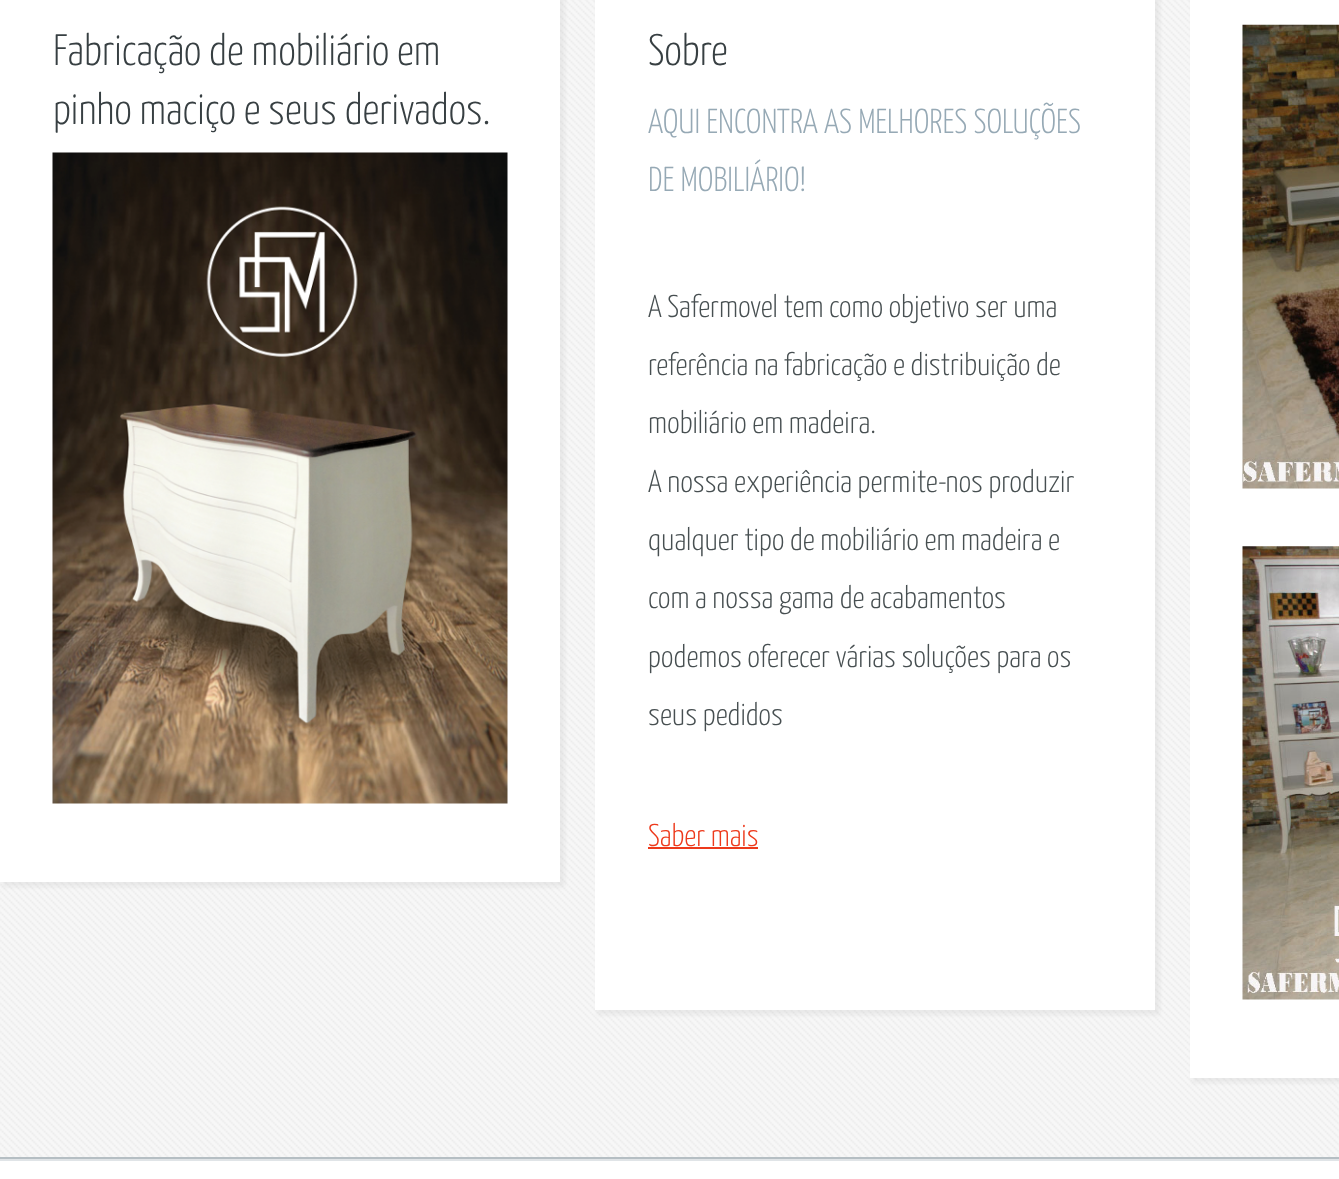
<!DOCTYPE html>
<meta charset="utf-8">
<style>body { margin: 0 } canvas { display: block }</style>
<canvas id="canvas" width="1339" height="1179"></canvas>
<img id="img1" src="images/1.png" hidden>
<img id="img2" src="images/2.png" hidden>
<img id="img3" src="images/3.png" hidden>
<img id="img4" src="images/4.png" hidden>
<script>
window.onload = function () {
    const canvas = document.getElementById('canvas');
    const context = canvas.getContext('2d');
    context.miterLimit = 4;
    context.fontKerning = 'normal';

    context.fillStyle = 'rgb(255, 255, 255)';
    context.fillRect(0, 0, 1339, 1179);
    context.fillStyle = 'rgb(247, 247, 247)';
    context.fillRect(0, 0, 1339, 1157);
    context.drawImage(document.getElementById('img1'), 0, 0, 1339, 1157);
    context.fillStyle = 'rgba(128, 128, 128, 0.1)';
    context.filter = 'blur(2px)';
    context.beginPath();
    context.rect(2, -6, 563, 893);
    context.fill();
    context.filter = 'none';
    context.fillStyle = 'rgb(255, 255, 255)';
    context.fillRect(0, 0, 560, 882);
    context.drawImage(document.getElementById('img2'), 52, 152, 456, 652);
    context.fillStyle = 'rgba(128, 128, 128, 0.1)';
    context.filter = 'blur(2px)';
    context.beginPath();
    context.rect(597, -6, 563, 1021);
    context.fill();
    context.filter = 'none';
    context.fillStyle = 'rgb(255, 255, 255)';
    context.fillRect(595, 0, 560, 1010);
    context.fillStyle = 'rgb(237, 57, 27)';
    context.fillRect(648, 847, 110, 2);
    context.fillStyle = 'rgba(128, 128, 128, 0.1)';
    context.filter = 'blur(2px)';
    context.beginPath();
    context.rect(1192, -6, 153, 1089);
    context.fill();
    context.filter = 'none';
    context.fillStyle = 'rgb(255, 255, 255)';
    context.fillRect(1190, 0, 149, 1078);
    context.drawImage(document.getElementById('img3'), 1242, 24, 97, 465);
    context.drawImage(document.getElementById('img4'), 1242, 546, 97, 454);
    context.fillStyle = 'rgb(224, 228, 231)';
    context.fillRect(0, 1159, 1339, 2);
    context.fillStyle = 'rgb(181, 190, 195)';
    context.fillRect(0, 1157, 1339, 2);
    context.font = '300 44px Yanone Kaffeesatz';
    context.fillStyle = 'rgb(55, 63, 66)';
    context.fillText('Fabricação de mobiliário em', 53, 65);
    context.fillText('pinho maciço e seus derivados.', 53, 124);
    context.fillText('Sobre', 648, 65);
    context.font = '300 34.6px Yanone Kaffeesatz';
    context.fillStyle = 'rgb(150, 169, 181)';
    context.fillText('AQUI ENCONTRA AS MELHORES SOLUÇÕES', 648, 133);
    context.fillText('DE MOBILIÁRIO!', 648, 191);
    context.font = '300 31.5px Yanone Kaffeesatz';
    context.fillStyle = 'rgb(71, 79, 81)';
    context.fillText('A Safermovel tem como objetivo ser uma', 648, 317);
    context.fillText('referência na fabricação e distribuição de', 648, 375);
    context.fillText('mobiliário em madeira.', 648, 433);
    context.fillText('A nossa experiência permite-nos produzir', 648, 492);
    context.fillText('qualquer tipo de mobiliário em madeira e', 648, 550);
    context.fillText('com a nossa gama de acabamentos', 648, 608);
    context.fillText('podemos oferecer várias soluções para os', 648, 667);
    context.fillText('seus pedidos', 648, 725);
    context.fillStyle = 'rgb(237, 57, 27)';
    context.fillText('Saber mais', 648, 846);
};
</script>
